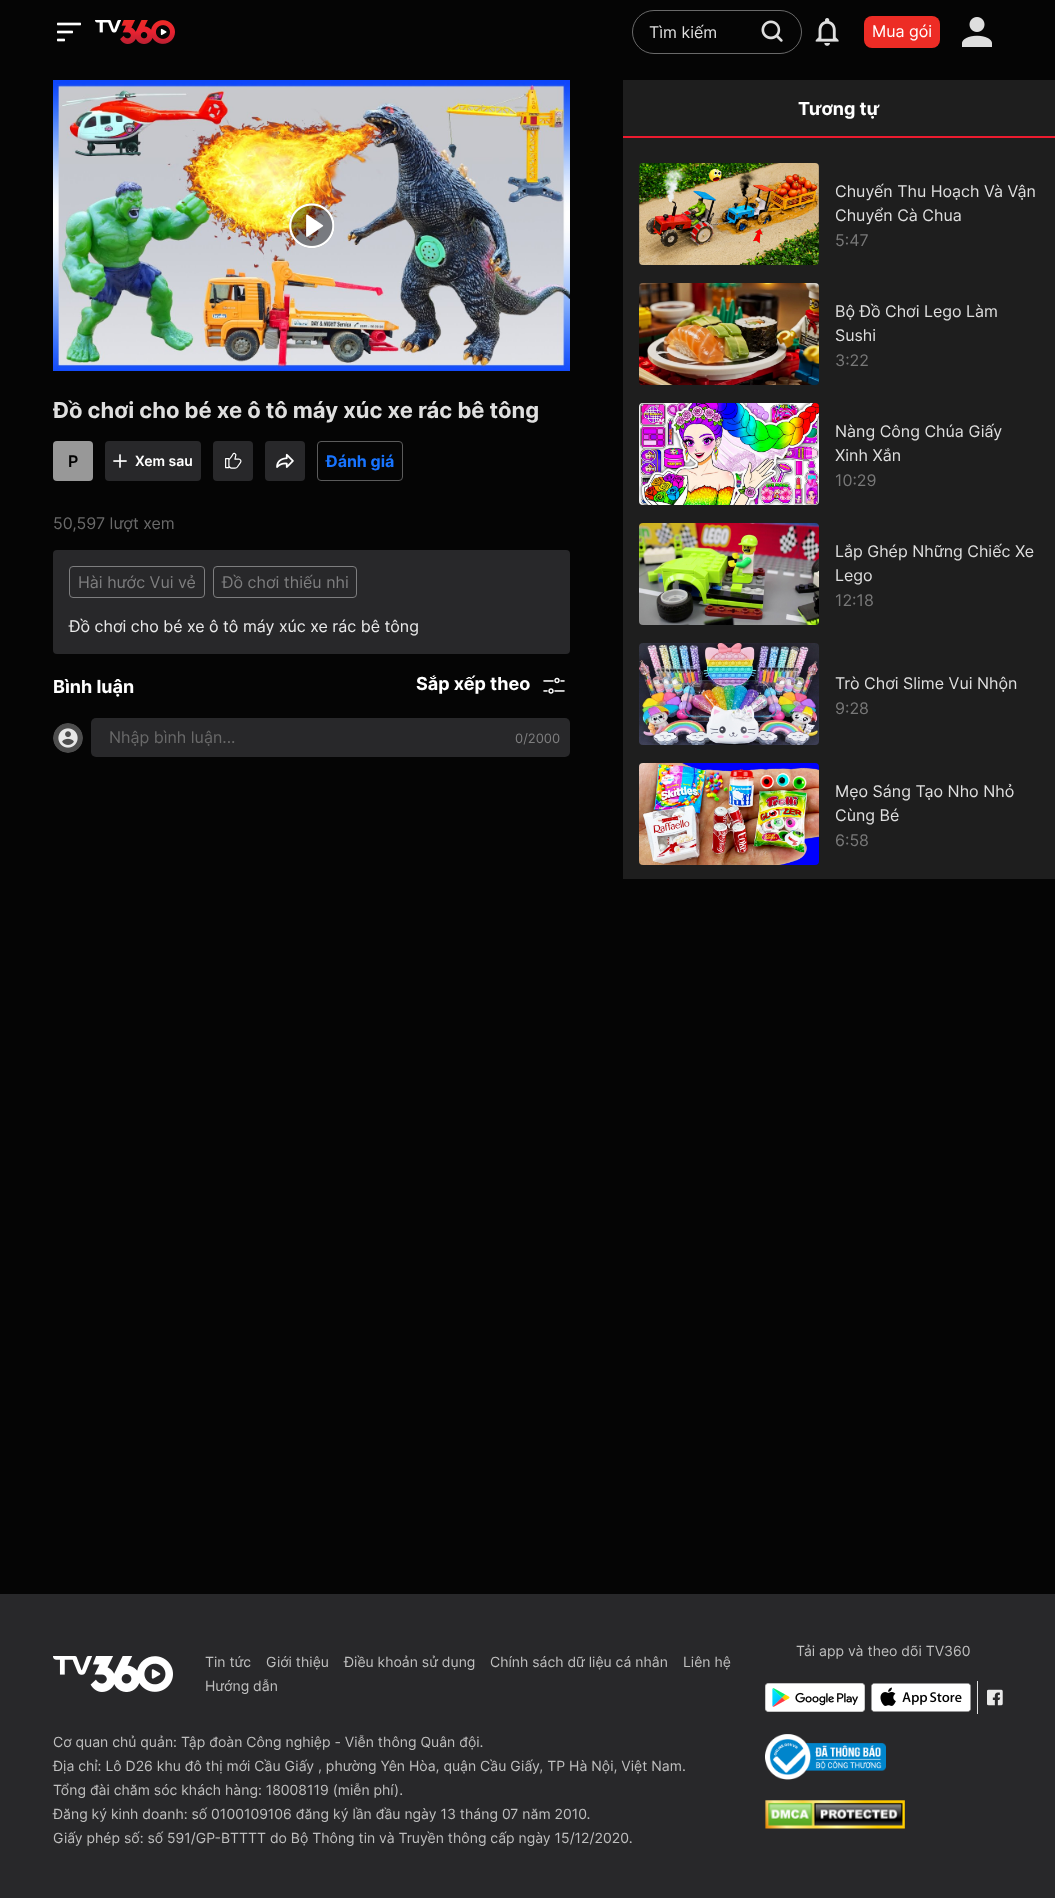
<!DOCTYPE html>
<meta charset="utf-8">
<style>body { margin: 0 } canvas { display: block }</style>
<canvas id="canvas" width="1055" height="1898"></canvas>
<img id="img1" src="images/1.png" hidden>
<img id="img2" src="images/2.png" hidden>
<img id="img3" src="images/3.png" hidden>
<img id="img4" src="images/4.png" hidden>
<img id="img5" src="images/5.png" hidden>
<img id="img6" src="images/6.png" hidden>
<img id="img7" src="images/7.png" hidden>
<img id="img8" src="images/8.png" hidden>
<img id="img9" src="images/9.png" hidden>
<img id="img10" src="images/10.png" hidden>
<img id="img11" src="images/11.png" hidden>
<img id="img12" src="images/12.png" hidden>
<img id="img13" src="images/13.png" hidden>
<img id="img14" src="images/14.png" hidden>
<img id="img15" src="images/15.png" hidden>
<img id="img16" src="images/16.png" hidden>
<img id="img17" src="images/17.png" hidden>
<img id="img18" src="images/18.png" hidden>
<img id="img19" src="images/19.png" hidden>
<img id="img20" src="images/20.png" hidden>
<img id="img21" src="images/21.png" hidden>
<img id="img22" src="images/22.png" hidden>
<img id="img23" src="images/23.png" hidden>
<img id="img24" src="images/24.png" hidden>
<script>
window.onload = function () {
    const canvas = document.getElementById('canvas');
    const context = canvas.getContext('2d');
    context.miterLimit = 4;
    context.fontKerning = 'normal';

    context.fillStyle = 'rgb(5, 5, 5)';
    context.fillRect(0, 0, 1055, 1898);
    context.drawImage(document.getElementById('img1'), 57, 22, 24, 20);
    context.drawImage(document.getElementById('img2'), 95, 20, 80, 24);
    context.beginPath();
    context.roundRect(632.5, 10.5, 169, 43, 21.5);
    context.strokeStyle = 'rgb(105, 105, 105)';
    context.stroke();
    context.drawImage(document.getElementById('img3'), 761, 20, 22, 22);
    context.drawImage(document.getElementById('img4'), 815, 18, 24, 28);
    context.fillStyle = 'rgb(237, 44, 37)';
    context.beginPath();
    context.roundRect(864, 16, 76, 32, 8);
    context.fill();
    context.drawImage(document.getElementById('img5'), 962, 17, 30, 30);
    context.drawImage(document.getElementById('img6'), 53, 80, 517, 291);
    context.drawImage(document.getElementById('img7'), 289, 203, 46, 46);
    context.fillStyle = 'rgb(152, 152, 152)';
    context.beginPath();
    context.roundRect(53, 441, 40, 40, 4);
    context.fill();
    context.fillStyle = 'rgb(40, 40, 42)';
    context.beginPath();
    context.roundRect(105, 441, 96, 40, 4);
    context.fill();
    context.drawImage(document.getElementById('img8'), 113, 454, 14, 14);
    context.beginPath();
    context.roundRect(213, 441, 40, 40, 4);
    context.fill();
    context.drawImage(document.getElementById('img9'), 225, 452, 17, 17);
    context.beginPath();
    context.roundRect(265, 441, 40, 40, 4);
    context.fill();
    context.drawImage(document.getElementById('img10'), 276, 453, 18, 15);
    context.beginPath();
    context.roundRect(317.5, 441.5, 85, 39, 3.5);
    context.strokeStyle = 'rgb(91, 91, 91)';
    context.stroke();
    context.beginPath();
    context.roundRect(53, 550, 517, 104, 4);
    context.fill();
    context.beginPath();
    context.roundRect(69.5, 566.5, 135, 31, 3.5);
    context.strokeStyle = 'rgb(126, 126, 127)';
    context.stroke();
    context.beginPath();
    context.roundRect(213.5, 566.5, 143, 31, 3.5);
    context.stroke();
    context.drawImage(document.getElementById('img11'), 543, 677, 22, 17);
    context.drawImage(document.getElementById('img12'), 53, 723, 30, 30);
    context.beginPath();
    context.roundRect(91, 718, 479, 39, 5);
    context.fill();
    context.fillStyle = 'rgb(30, 30, 30)';
    context.fillRect(623, 80, 432, 799);
    context.fillStyle = 'rgb(237, 27, 47)';
    context.fillRect(623, 136, 432, 2);
    context.drawImage(document.getElementById('img13'), 639, 163, 180, 102);
    context.drawImage(document.getElementById('img14'), 639, 283, 180, 102);
    context.drawImage(document.getElementById('img15'), 639, 403, 180, 102);
    context.drawImage(document.getElementById('img16'), 639, 523, 180, 102);
    context.drawImage(document.getElementById('img17'), 639, 643, 180, 102);
    context.drawImage(document.getElementById('img18'), 639, 763, 180, 102);
    context.fillStyle = 'rgb(40, 40, 42)';
    context.fillRect(0, 1594, 1055, 304);
    context.drawImage(document.getElementById('img19'), 765, 1683, 100, 29);
    context.drawImage(document.getElementById('img20'), 871, 1683, 100, 29);
    context.fillStyle = 'rgb(227, 227, 227)';
    context.fillRect(977, 1681, 1, 33);
    context.drawImage(document.getElementById('img21'), 987, 1689, 16, 17);
    context.drawImage(document.getElementById('img22'), 765, 1734, 121, 46);
    context.drawImage(document.getElementById('img23'), 765, 1800, 140, 29);
    context.drawImage(document.getElementById('img24'), 53, 1656, 120, 36);
    context.font = '16px Inter';
    context.fillStyle = 'rgb(223, 223, 223)';
    context.fillText('Tìm kiếm', 649, 38);
    context.fillStyle = 'rgb(255, 255, 255)';
    context.fillText('Mua gói', 872, 37);
    context.save();
    context.beginPath();
    context.rect(53, 395, 517, 30);
    context.clip();
    context.font = 'bold 22px Inter';
    context.fillStyle = 'rgb(223, 223, 223)';
    context.fillText('Đồ chơi cho bé xe ô tô máy xúc xe rác bê tông', 53, 418);
    context.restore();
    context.font = '600 16px Inter';
    context.fillStyle = 'rgb(0, 0, 0)';
    context.fillText('P', 68, 467);
    context.font = '600 14px Inter';
    context.fillStyle = 'rgb(255, 255, 255)';
    context.fillText('Xem sau', 135, 466);
    context.font = 'bold 16px Inter';
    context.fillStyle = 'rgb(24, 116, 255)';
    context.fillText('Đánh giá', 326, 467);
    context.font = '16px Inter';
    context.fillStyle = 'rgb(105, 105, 105)';
    context.fillText('50,597 lượt xem', 53, 529);
    context.fillStyle = 'rgb(126, 126, 127)';
    context.fillText('Hài hước Vui vẻ', 78, 588);
    context.fillText('Đồ chơi thiếu nhi', 222, 588);
    context.fillStyle = 'rgb(234, 234, 234)';
    context.fillText('Đồ chơi cho bé xe ô tô máy xúc xe rác bê tông', 69, 632);
    context.font = 'bold 18px Inter';
    context.fillStyle = 'rgb(255, 255, 255)';
    context.fillText('Bình luận', 53, 693);
    context.fillText('Sắp xếp theo', 416, 690);
    context.font = '16px Inter';
    context.fillStyle = 'rgb(105, 105, 105)';
    context.fillText('Nhập bình luận...', 109, 743);
    context.font = '13px Inter';
    context.fillStyle = 'rgb(126, 126, 127)';
    context.fillText('0/2000', 515, 743);
    context.font = 'bold 18px Inter';
    context.fillStyle = 'rgb(255, 255, 255)';
    context.fillText('Tương tự', 798, 115);
    context.font = '16px Inter';
    context.fillStyle = 'rgb(223, 223, 223)';
    context.fillText('Chuyến Thu Hoạch Và Vận', 835, 197);
    context.fillText('Chuyển Cà Chua', 835, 221);
    context.fillStyle = 'rgb(120, 120, 120)';
    context.fillText('5:47', 835, 246);
    context.fillStyle = 'rgb(223, 223, 223)';
    context.fillText('Bộ Đồ Chơi Lego Làm', 835, 317);
    context.fillText('Sushi', 835, 341);
    context.fillStyle = 'rgb(120, 120, 120)';
    context.fillText('3:22', 835, 366);
    context.fillStyle = 'rgb(223, 223, 223)';
    context.fillText('Nàng Công Chúa Giấy', 835, 437);
    context.fillText('Xinh Xắn', 835, 461);
    context.fillStyle = 'rgb(120, 120, 120)';
    context.fillText('10:29', 835, 486);
    context.fillStyle = 'rgb(223, 223, 223)';
    context.fillText('Lắp Ghép Những Chiếc Xe', 835, 557);
    context.fillText('Lego', 835, 581);
    context.fillStyle = 'rgb(120, 120, 120)';
    context.fillText('12:18', 835, 606);
    context.fillStyle = 'rgb(223, 223, 223)';
    context.fillText('Trò Chơi Slime Vui Nhộn', 835, 689);
    context.fillStyle = 'rgb(120, 120, 120)';
    context.fillText('9:28', 835, 714);
    context.fillStyle = 'rgb(223, 223, 223)';
    context.fillText('Mẹo Sáng Tạo Nho Nhỏ', 835, 797);
    context.fillText('Cùng Bé', 835, 821);
    context.fillStyle = 'rgb(120, 120, 120)';
    context.fillText('6:58', 835, 846);
    context.font = '14px Inter';
    context.fillStyle = 'rgb(191, 191, 191)';
    context.fillText('Tải app và theo dõi TV360', 796, 1656);
    context.fillText('Tin tức', 205, 1667);
    context.fillText('Giới thiệu', 266, 1667);
    context.fillText('Điều khoản sử dụng', 344, 1667);
    context.fillText('Chính sách dữ liệu cá nhân', 490, 1667);
    context.fillText('Liên hệ', 683, 1667);
    context.fillText('Hướng dẫn', 205, 1691);
    context.fillText('Cơ quan chủ quản: Tập đoàn Công nghiệp - Viễn thông Quân đội.', 53, 1747);
    context.fillText('Địa chỉ: Lô D26 khu đô thị mới Cầu Giấy , phường Yên Hòa, quận Cầu Giấy, TP Hà Nội, Việt Nam.', 53, 1771);
    context.fillText('Tổng đài chăm sóc khách hàng: 18008119 (miễn phí).', 53, 1795);
    context.fillText('Đăng ký kinh doanh: số 0100109106 đăng ký lần đầu ngày 13 tháng 07 năm 2010.', 53, 1819);
    context.fillText('Giấy phép số: số 591/GP-BTTTT do Bộ Thông tin và Truyền thông cấp ngày 15/12/2020.', 53, 1843);
};
</script>
